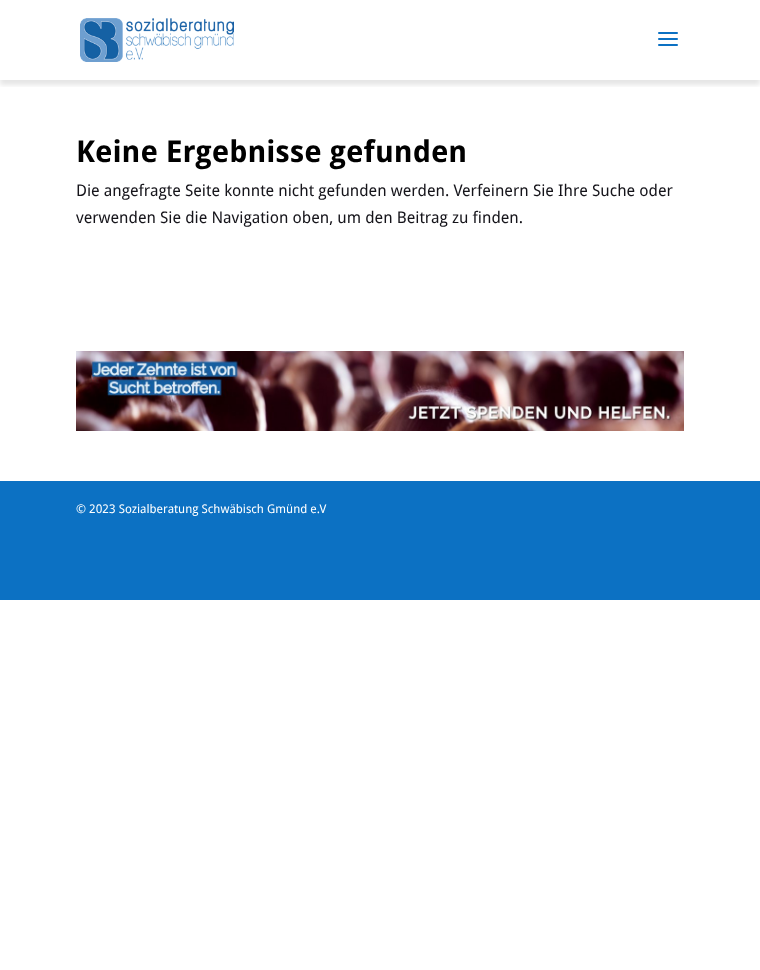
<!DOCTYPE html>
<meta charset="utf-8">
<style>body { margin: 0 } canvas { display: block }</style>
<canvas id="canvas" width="760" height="970"></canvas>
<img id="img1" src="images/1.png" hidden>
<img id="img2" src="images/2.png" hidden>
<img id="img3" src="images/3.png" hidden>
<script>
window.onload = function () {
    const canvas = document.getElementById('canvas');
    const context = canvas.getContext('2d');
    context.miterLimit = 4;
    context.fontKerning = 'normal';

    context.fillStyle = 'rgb(255, 255, 255)';
    context.fillRect(0, 0, 760, 970);
    context.save();
    context.beginPath();
    context.rect(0, 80, 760, 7);
    context.clip();
    context.fillStyle = 'rgba(0, 0, 0, 0.1)';
    context.filter = 'blur(2.5px)';
    context.beginPath();
    context.rect(0, 5, 760, 80);
    context.fill();
    context.filter = 'none';
    context.restore();
    context.drawImage(document.getElementById('img1'), 80, 18, 154, 44);
    context.drawImage(document.getElementById('img2'), 658, 32, 20, 14);
    context.drawImage(document.getElementById('img3'), 76, 351, 608, 80);
    context.fillStyle = 'rgb(12, 113, 195)';
    context.fillRect(0, 481, 760, 119);
    context.font = 'bold 30px Droid Sans';
    context.fillStyle = 'rgb(0, 0, 0)';
    context.fillText('Keine Ergebnisse gefunden', 76, 162);
    context.font = '16px Droid Sans';
    context.fillStyle = 'rgb(21, 20, 26)';
    context.fillText('Die angefragte Seite konnte nicht gefunden werden. Verfeinern Sie Ihre Suche oder', 76, 196);
    context.fillText('verwenden Sie die Navigation oben, um den Beitrag zu finden.', 76, 223);
    context.font = '12px Droid Sans';
    context.fillStyle = 'rgb(255, 255, 255)';
    context.fillText('© 2023 Sozialberatung Schwäbisch Gmünd e.V', 76, 513);
};
</script>
